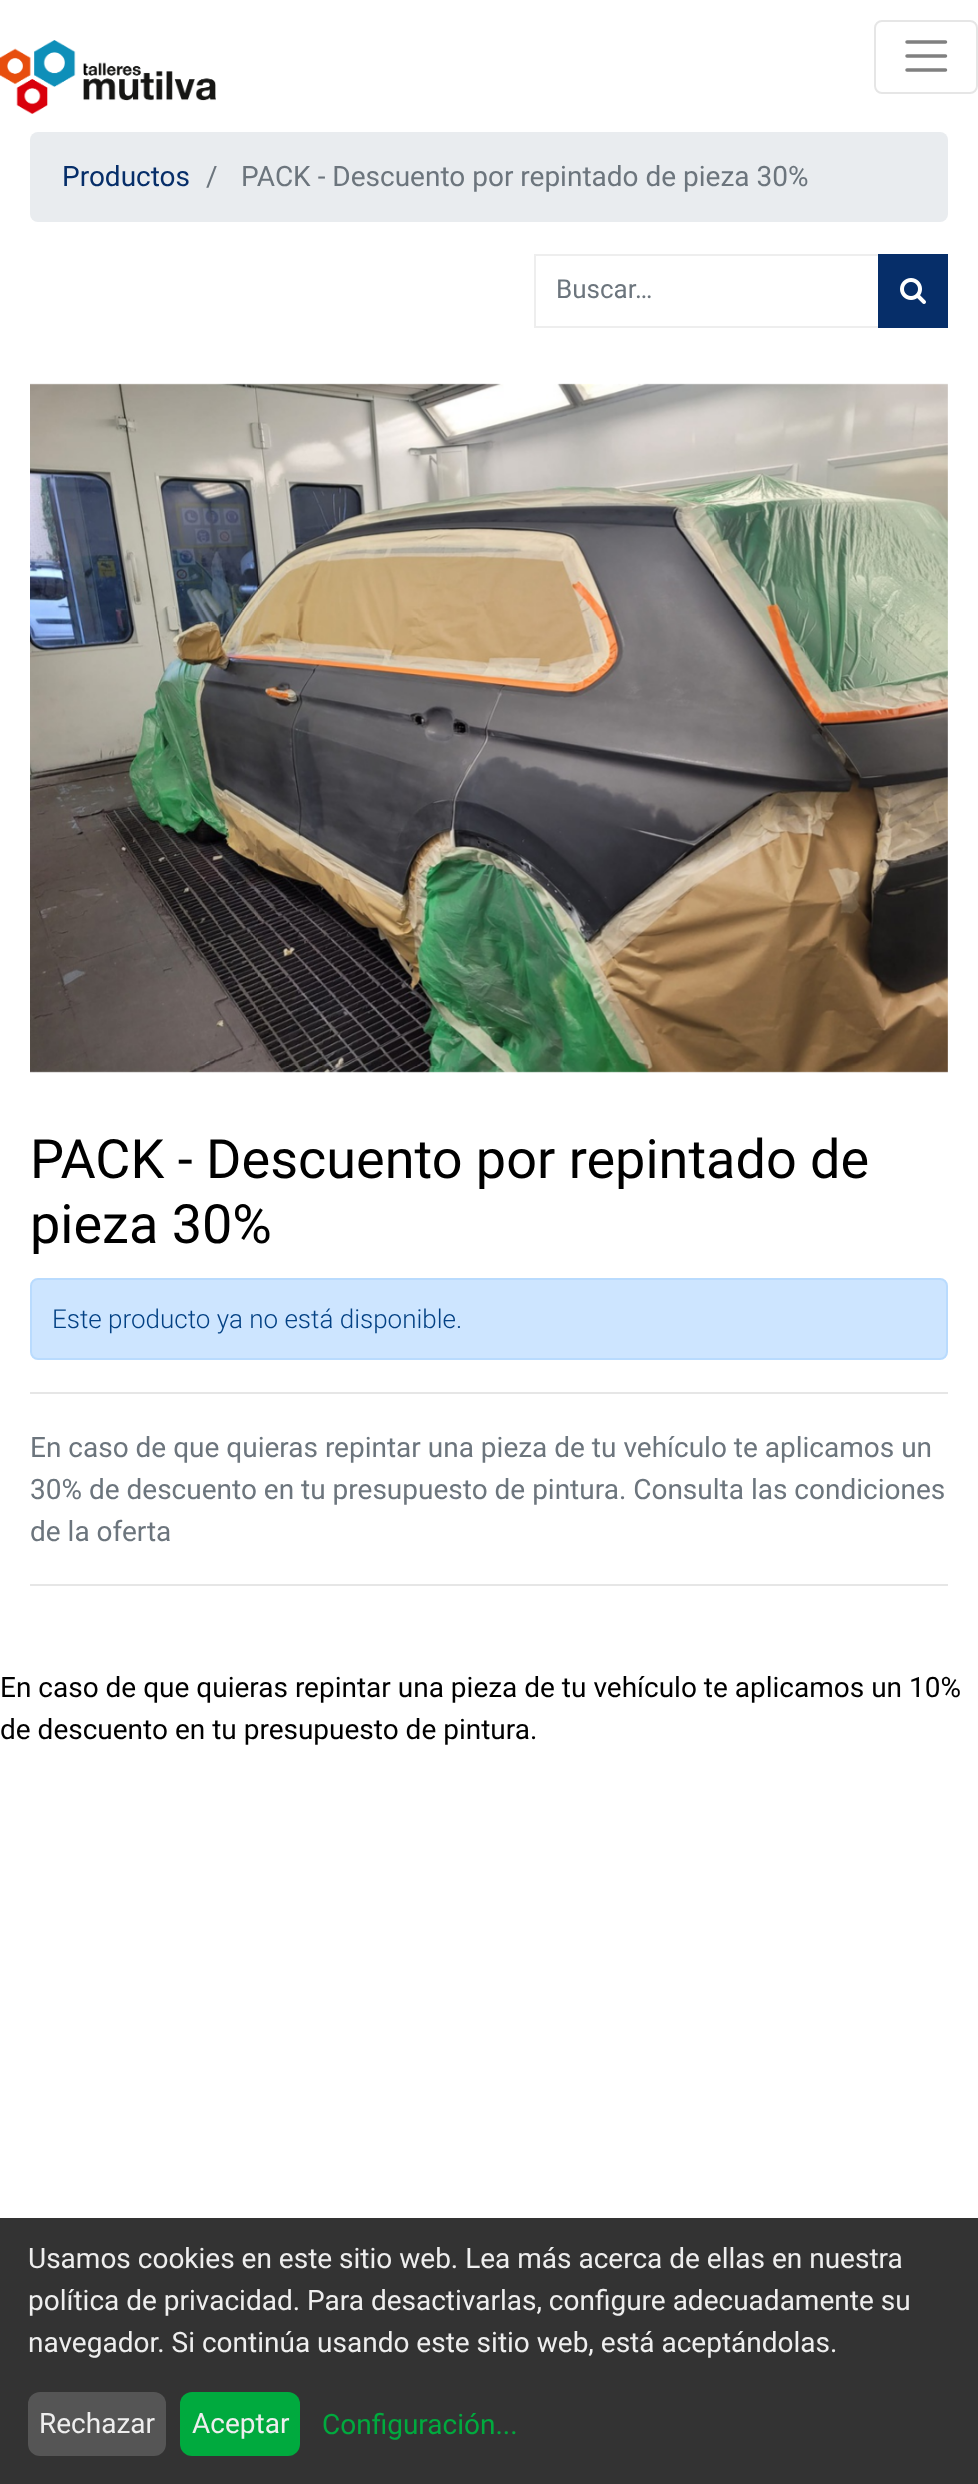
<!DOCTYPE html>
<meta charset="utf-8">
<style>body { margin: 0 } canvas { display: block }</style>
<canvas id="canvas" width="978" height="2484"></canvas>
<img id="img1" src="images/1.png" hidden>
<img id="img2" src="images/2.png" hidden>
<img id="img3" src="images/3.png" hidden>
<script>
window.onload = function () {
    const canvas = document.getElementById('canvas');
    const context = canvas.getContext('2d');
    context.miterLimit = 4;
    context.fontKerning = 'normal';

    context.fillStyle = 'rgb(255, 255, 255)';
    context.fillRect(0, 0, 978, 2484);
    context.drawImage(document.getElementById('img1'), 0, 40, 216, 74);
    context.beginPath();
    context.roundRect(875, 21, 102, 72, 7);
    context.strokeStyle = 'rgb(230, 230, 230)';
    context.lineWidth = 2;
    context.stroke();
    context.beginPath();
    context.moveTo(907, 42);
    context.lineTo(945.5, 42);
    context.moveTo(907, 56);
    context.lineTo(945.5, 56);
    context.moveTo(907, 70);
    context.lineTo(945.5, 70);
    context.strokeStyle = 'rgb(128, 128, 128)';
    context.lineWidth = 3.5;
    context.lineCap = 'round';
    context.stroke();
    context.fillStyle = 'rgb(233, 236, 239)';
    context.beginPath();
    context.roundRect(30, 132, 918, 90, 8);
    context.fill();
    context.strokeStyle = 'rgb(238, 238, 238)';
    context.lineWidth = 2;
    context.strokeRect(535, 255, 344, 72);
    context.fillStyle = 'rgb(6, 46, 105)';
    context.fillRect(878, 254, 70, 74);
    context.drawImage(document.getElementById('img2'), 900, 278, 26, 26);
    context.drawImage(document.getElementById('img3'), 30, 383, 918, 690);
    context.fillStyle = 'rgb(205, 229, 255)';
    context.beginPath();
    context.roundRect(31, 1279, 916, 80, 7);
    context.fill();
    context.strokeStyle = 'rgb(185, 219, 254)';
    context.stroke();
    context.fillStyle = 'rgb(230, 230, 230)';
    context.fillRect(30, 1392, 918, 2);
    context.fillRect(30, 1584, 918, 2);
    context.fillStyle = 'rgb(51, 51, 51)';
    context.fillRect(0, 2218, 978, 266);
    context.fillStyle = 'rgb(85, 85, 85)';
    context.beginPath();
    context.roundRect(28, 2392, 138, 64, 12);
    context.fill();
    context.fillStyle = 'rgb(0, 170, 62)';
    context.beginPath();
    context.roundRect(180, 2392, 120, 64, 12);
    context.fill();
    context.font = '28px Roboto';
    context.fillStyle = 'rgb(6, 46, 105)';
    context.fillText('Productos', 62, 186);
    context.fillStyle = 'rgb(108, 117, 125)';
    context.fillText('/', 206, 186);
    context.fillText('PACK - Descuento por repintado de pieza 30%', 241, 186);
    context.font = '26px Roboto';
    context.fillText('Buscar…', 556, 298);
    context.font = '54px Roboto';
    context.fillStyle = 'rgb(0, 0, 0)';
    context.fillText('PACK - Descuento por repintado de', 30, 1178);
    context.fillText('pieza 30%', 30, 1243);
    context.font = '300 26px Roboto';
    context.fillStyle = 'rgb(3, 65, 132)';
    context.fillText('Este producto ya no está disponible.', 52, 1328);
    context.font = '28px Roboto';
    context.fillStyle = 'rgb(108, 117, 125)';
    context.fillText('En caso de que quieras repintar una pieza de tu vehículo te aplicamos un', 30, 1457);
    context.fillText('30% de descuento en tu presupuesto de pintura. Consulta las condiciones', 30, 1499);
    context.fillText('de la oferta', 30, 1541);
    context.fillStyle = 'rgb(0, 0, 0)';
    context.fillText('En caso de que quieras repintar una pieza de tu vehículo te aplicamos un 10%', 0, 1697);
    context.fillText('de descuento en tu presupuesto de pintura.', 0, 1739);
    context.fillStyle = 'rgb(238, 238, 238)';
    context.fillText('Usamos cookies en este sitio web. Lea más acerca de ellas en nuestra', 28, 2268);
    context.fillText('política de privacidad. Para desactivarlas, configure adecuadamente su', 28, 2310);
    context.fillText('navegador. Si continúa usando este sitio web, está aceptándolas.', 28, 2352);
    context.fillText('Rechazar', 39, 2433);
    context.fillText('Aceptar', 192, 2433);
    context.fillStyle = 'rgb(0, 170, 62)';
    context.fillText('Configuración...', 322, 2434);
};
</script>
